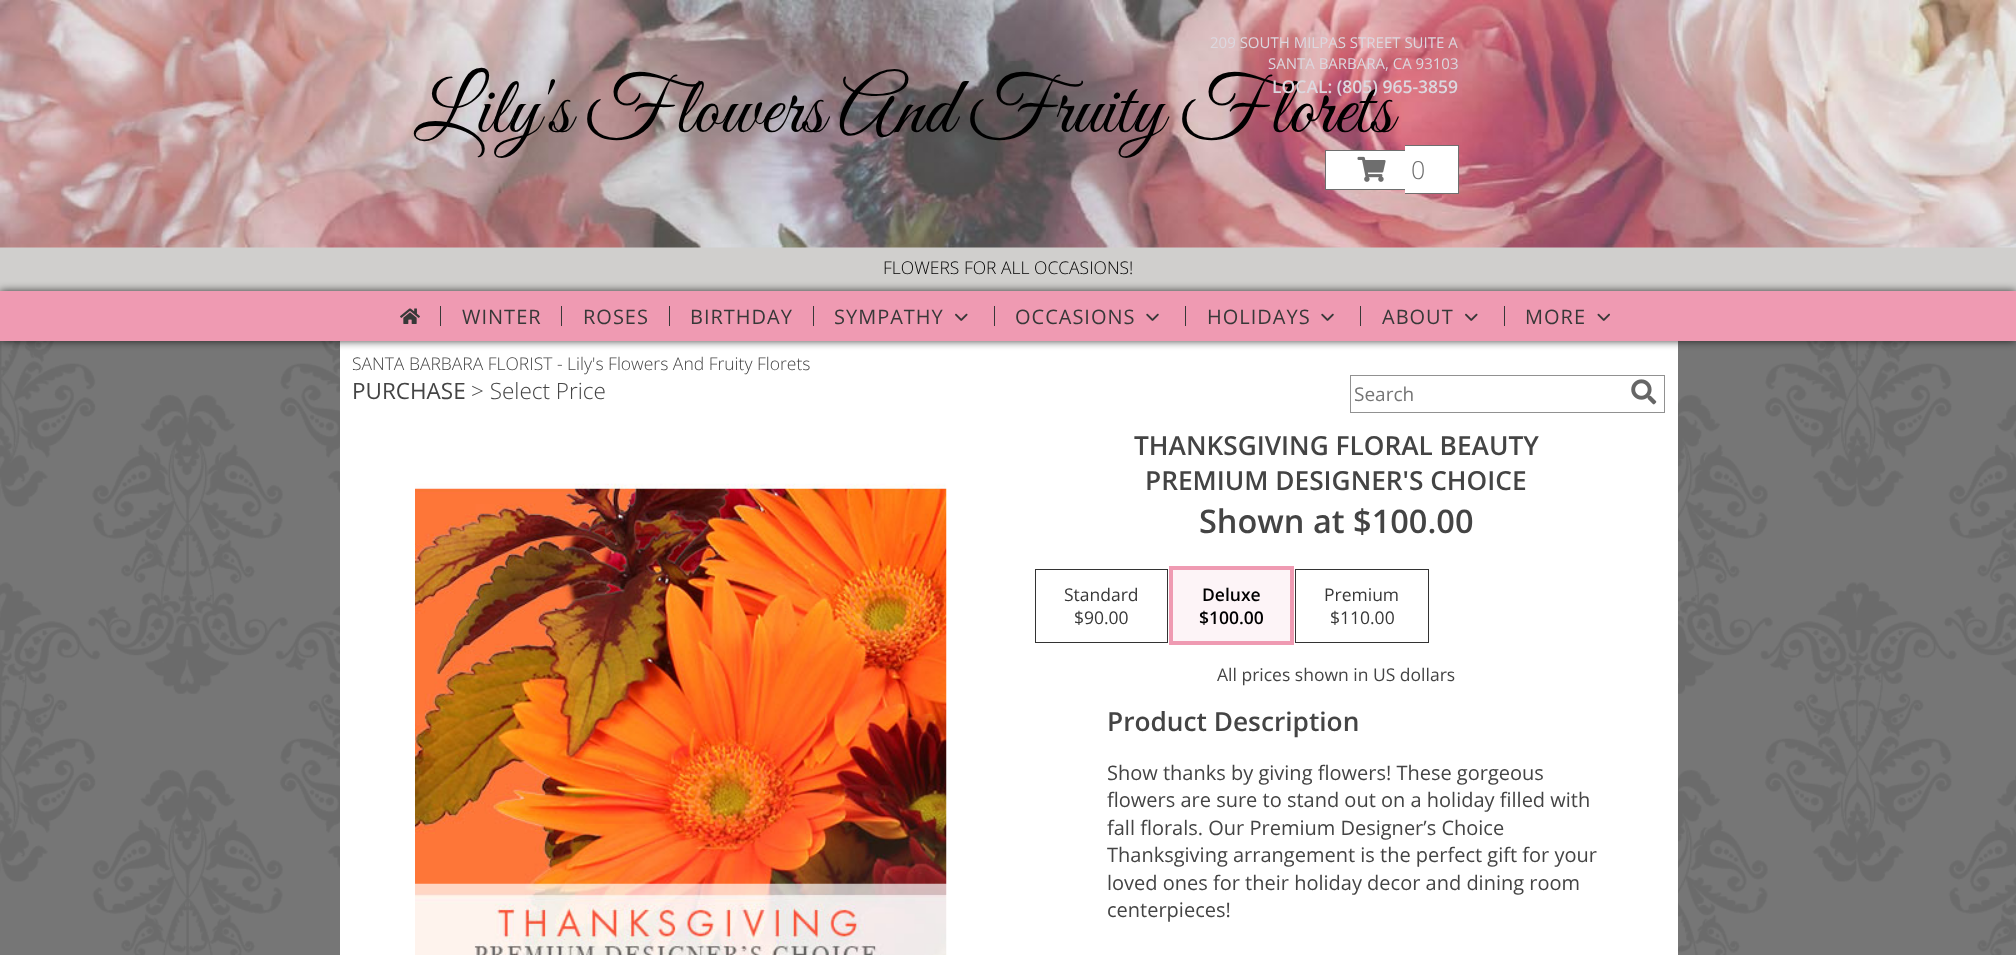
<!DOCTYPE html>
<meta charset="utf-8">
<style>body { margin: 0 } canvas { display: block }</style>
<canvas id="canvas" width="2016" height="955"></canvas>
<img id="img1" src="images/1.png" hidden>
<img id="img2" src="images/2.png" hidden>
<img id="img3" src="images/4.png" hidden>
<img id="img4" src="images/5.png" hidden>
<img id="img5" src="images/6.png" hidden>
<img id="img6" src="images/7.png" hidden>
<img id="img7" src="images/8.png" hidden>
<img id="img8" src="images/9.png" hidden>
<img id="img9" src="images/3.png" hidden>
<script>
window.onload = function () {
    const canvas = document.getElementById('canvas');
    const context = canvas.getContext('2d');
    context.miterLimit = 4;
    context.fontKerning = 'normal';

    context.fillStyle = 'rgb(118, 118, 118)';
    context.fillRect(0, 0, 2016, 955);
    context.drawImage(document.getElementById('img1'), 0, 341, 2016, 614);
    context.fillStyle = 'rgb(255, 255, 255)';
    context.fillRect(340, 341, 1338, 614);
    context.fillStyle = 'rgb(208, 207, 205)';
    context.fillRect(0, 247, 2016, 44);
    context.drawImage(document.getElementById('img2'), 0, 0, 2016, 248);
    context.fillStyle = 'rgb(110, 110, 110)';
    context.fillRect(1325, 189, 80, 1);
    context.fillStyle = 'rgb(255, 255, 255)';
    context.fillRect(1405, 145, 6, 49);
    context.fillStyle = 'rgb(110, 110, 110)';
    context.fillRect(1405, 145, 54, 1);
    context.fillRect(1405, 193, 6, 1);
    context.fillStyle = 'rgb(255, 255, 255)';
    context.fillRect(1411, 146, 47, 47);
    context.fillStyle = 'rgb(110, 110, 110)';
    context.fillRect(1458, 145, 1, 49);
    context.fillRect(1411, 193, 48, 1);
    context.fillStyle = 'rgba(0, 0, 0, 0.75)';
    context.filter = 'blur(4px)';
    context.beginPath();
    context.rect(0, 291, 2016, 50);
    context.fill();
    context.filter = 'none';
    context.fillStyle = 'rgb(239, 154, 178)';
    context.fillRect(0, 291, 2016, 50);
    context.drawImage(document.getElementById('img3'), 400, 308, 20, 16);
    context.fillStyle = 'rgb(56, 56, 56)';
    context.fillRect(440, 306, 1, 20);
    context.fillRect(561, 306, 1, 20);
    context.fillRect(669, 306, 1, 20);
    context.fillRect(813, 306, 1, 20);
    context.drawImage(document.getElementById('img4'), 955, 313, 13, 8);
    context.fillRect(994, 306, 1, 20);
    context.drawImage(document.getElementById('img5'), 1146, 313, 13, 8);
    context.fillRect(1185, 306, 1, 20);
    context.drawImage(document.getElementById('img5'), 1321, 313, 13, 8);
    context.fillRect(1360, 306, 1, 20);
    context.drawImage(document.getElementById('img4'), 1465, 313, 13, 8);
    context.fillRect(1504, 306, 1, 20);
    context.drawImage(document.getElementById('img6'), 1597, 313, 13, 8);
    context.strokeStyle = 'rgb(145, 145, 145)';
    context.strokeRect(1350.5, 375.5, 314, 37);
    context.drawImage(document.getElementById('img7'), 1631, 379, 26, 26);
    context.drawImage(document.getElementById('img8'), 415, 483, 532, 472);
    context.strokeStyle = 'rgb(51, 51, 51)';
    context.strokeRect(1035.5, 569.5, 132, 73);
    context.strokeStyle = 'rgb(239, 154, 178)';
    context.lineWidth = 4;
    context.strokeRect(1171, 568, 121, 75);
    context.fillStyle = 'rgb(253, 244, 247)';
    context.fillRect(1173, 570, 117, 71);
    context.strokeStyle = 'rgb(51, 51, 51)';
    context.lineWidth = 1;
    context.strokeRect(1295.5, 569.5, 133, 73);
    context.font = '15px Open Sans';
    context.fillStyle = 'rgb(220, 216, 223)';
    context.fillText('209 SOUTH MILPAS STREET SUITE A', 1210, 48);
    context.fillText('SANTA BARBARA, CA 93103', 1268, 69);
    context.font = '300 25px Open Sans';
    context.fillStyle = 'rgb(110, 110, 110)';
    context.fillText('0', 1411, 179);
    context.font = '81.25px Great Vibes';
    context.fillStyle = 'rgb(0, 0, 0)';
    context.fillText('Lily\'s Flowers And Fruity Florets', 414, 132);
    context.fillStyle = 'rgb(255, 255, 255)';
    context.fillRect(1326, 151, 79, 38);
    context.drawImage(document.getElementById('img9'), 1357, 156, 29, 26);
    context.fillStyle = 'rgb(110, 110, 110)';
    context.fillRect(1325, 150, 80, 1);
    context.fillRect(1325, 150, 1, 40);
    context.font = '600 17.5px Open Sans';
    context.fillStyle = 'rgb(220, 216, 223)';
    context.fillText('LOCAL: (805) 965-3859', 1272, 93);
    context.font = '300 17.5px Open Sans';
    context.fillStyle = 'rgb(0, 0, 0)';
    context.fillText('FLOWERS FOR ALL OCCASIONS!', 883, 274);
    context.letterSpacing = '1px';
    context.font = '20px Open Sans';
    context.fillStyle = 'rgb(56, 56, 56)';
    context.fillText('WINTER', 462, 324);
    context.fillText('ROSES', 583, 324);
    context.fillText('BIRTHDAY', 690, 324);
    context.fillText('SYMPATHY', 834, 324);
    context.fillText('OCCASIONS', 1015, 324);
    context.fillText('HOLIDAYS', 1207, 324);
    context.fillText('ABOUT', 1382, 324);
    context.fillText('MORE', 1525, 324);
    context.letterSpacing = '0px';
    context.font = '300 17.5px Open Sans';
    context.fillStyle = 'rgb(68, 68, 68)';
    context.fillText('SANTA BARBARA FLORIST - Lily\'s Flowers And Fruity Florets', 352, 370);
    context.font = '22.5px Open Sans';
    context.fillText('PURCHASE', 352, 399);
    context.font = '300 22.5px Open Sans';
    context.fillText('> Select Price', 471, 399);
    context.font = '19px Open Sans';
    context.fillStyle = 'rgb(117, 117, 117)';
    context.fillText('Search', 1354, 401);
    context.font = '600 26.25px Open Sans';
    context.fillStyle = 'rgb(68, 68, 68)';
    context.fillText('THANKSGIVING FLORAL BEAUTY', 1134, 455);
    context.fillText('PREMIUM DESIGNER\'S CHOICE', 1145, 490);
    context.font = '600 32.5px Open Sans';
    context.fillText('Shown at $100.00', 1199, 533);
    context.font = '17.5px Open Sans';
    context.fillStyle = 'rgb(56, 56, 56)';
    context.fillText('Standard', 1064, 601);
    context.fillText('$90.00', 1074, 624);
    context.font = '600 17.5px Open Sans';
    context.fillStyle = 'rgb(0, 0, 0)';
    context.fillText('Deluxe', 1202, 601);
    context.fillText('$100.00', 1199, 624);
    context.font = '17.5px Open Sans';
    context.fillStyle = 'rgb(56, 56, 56)';
    context.fillText('Premium', 1324, 601);
    context.fillText('$110.00', 1330, 624);
    context.fillStyle = 'rgb(68, 68, 68)';
    context.fillText('All prices shown in US dollars', 1217, 681);
    context.font = '600 26.25px Open Sans';
    context.fillText('Product Description', 1107, 731);
    context.font = '20px Open Sans';
    context.fillText('Show thanks by giving flowers! These gorgeous', 1107, 780);
    context.fillText('flowers are sure to stand out on a holiday filled with', 1107, 807);
    context.fillText('fall florals. Our Premium Designer’s Choice', 1107, 835);
    context.fillText('Thanksgiving arrangement is the perfect gift for your', 1107, 862);
    context.fillText('loved ones for their holiday decor and dining room', 1107, 890);
    context.fillText('centerpieces!', 1107, 917);
};
</script>
